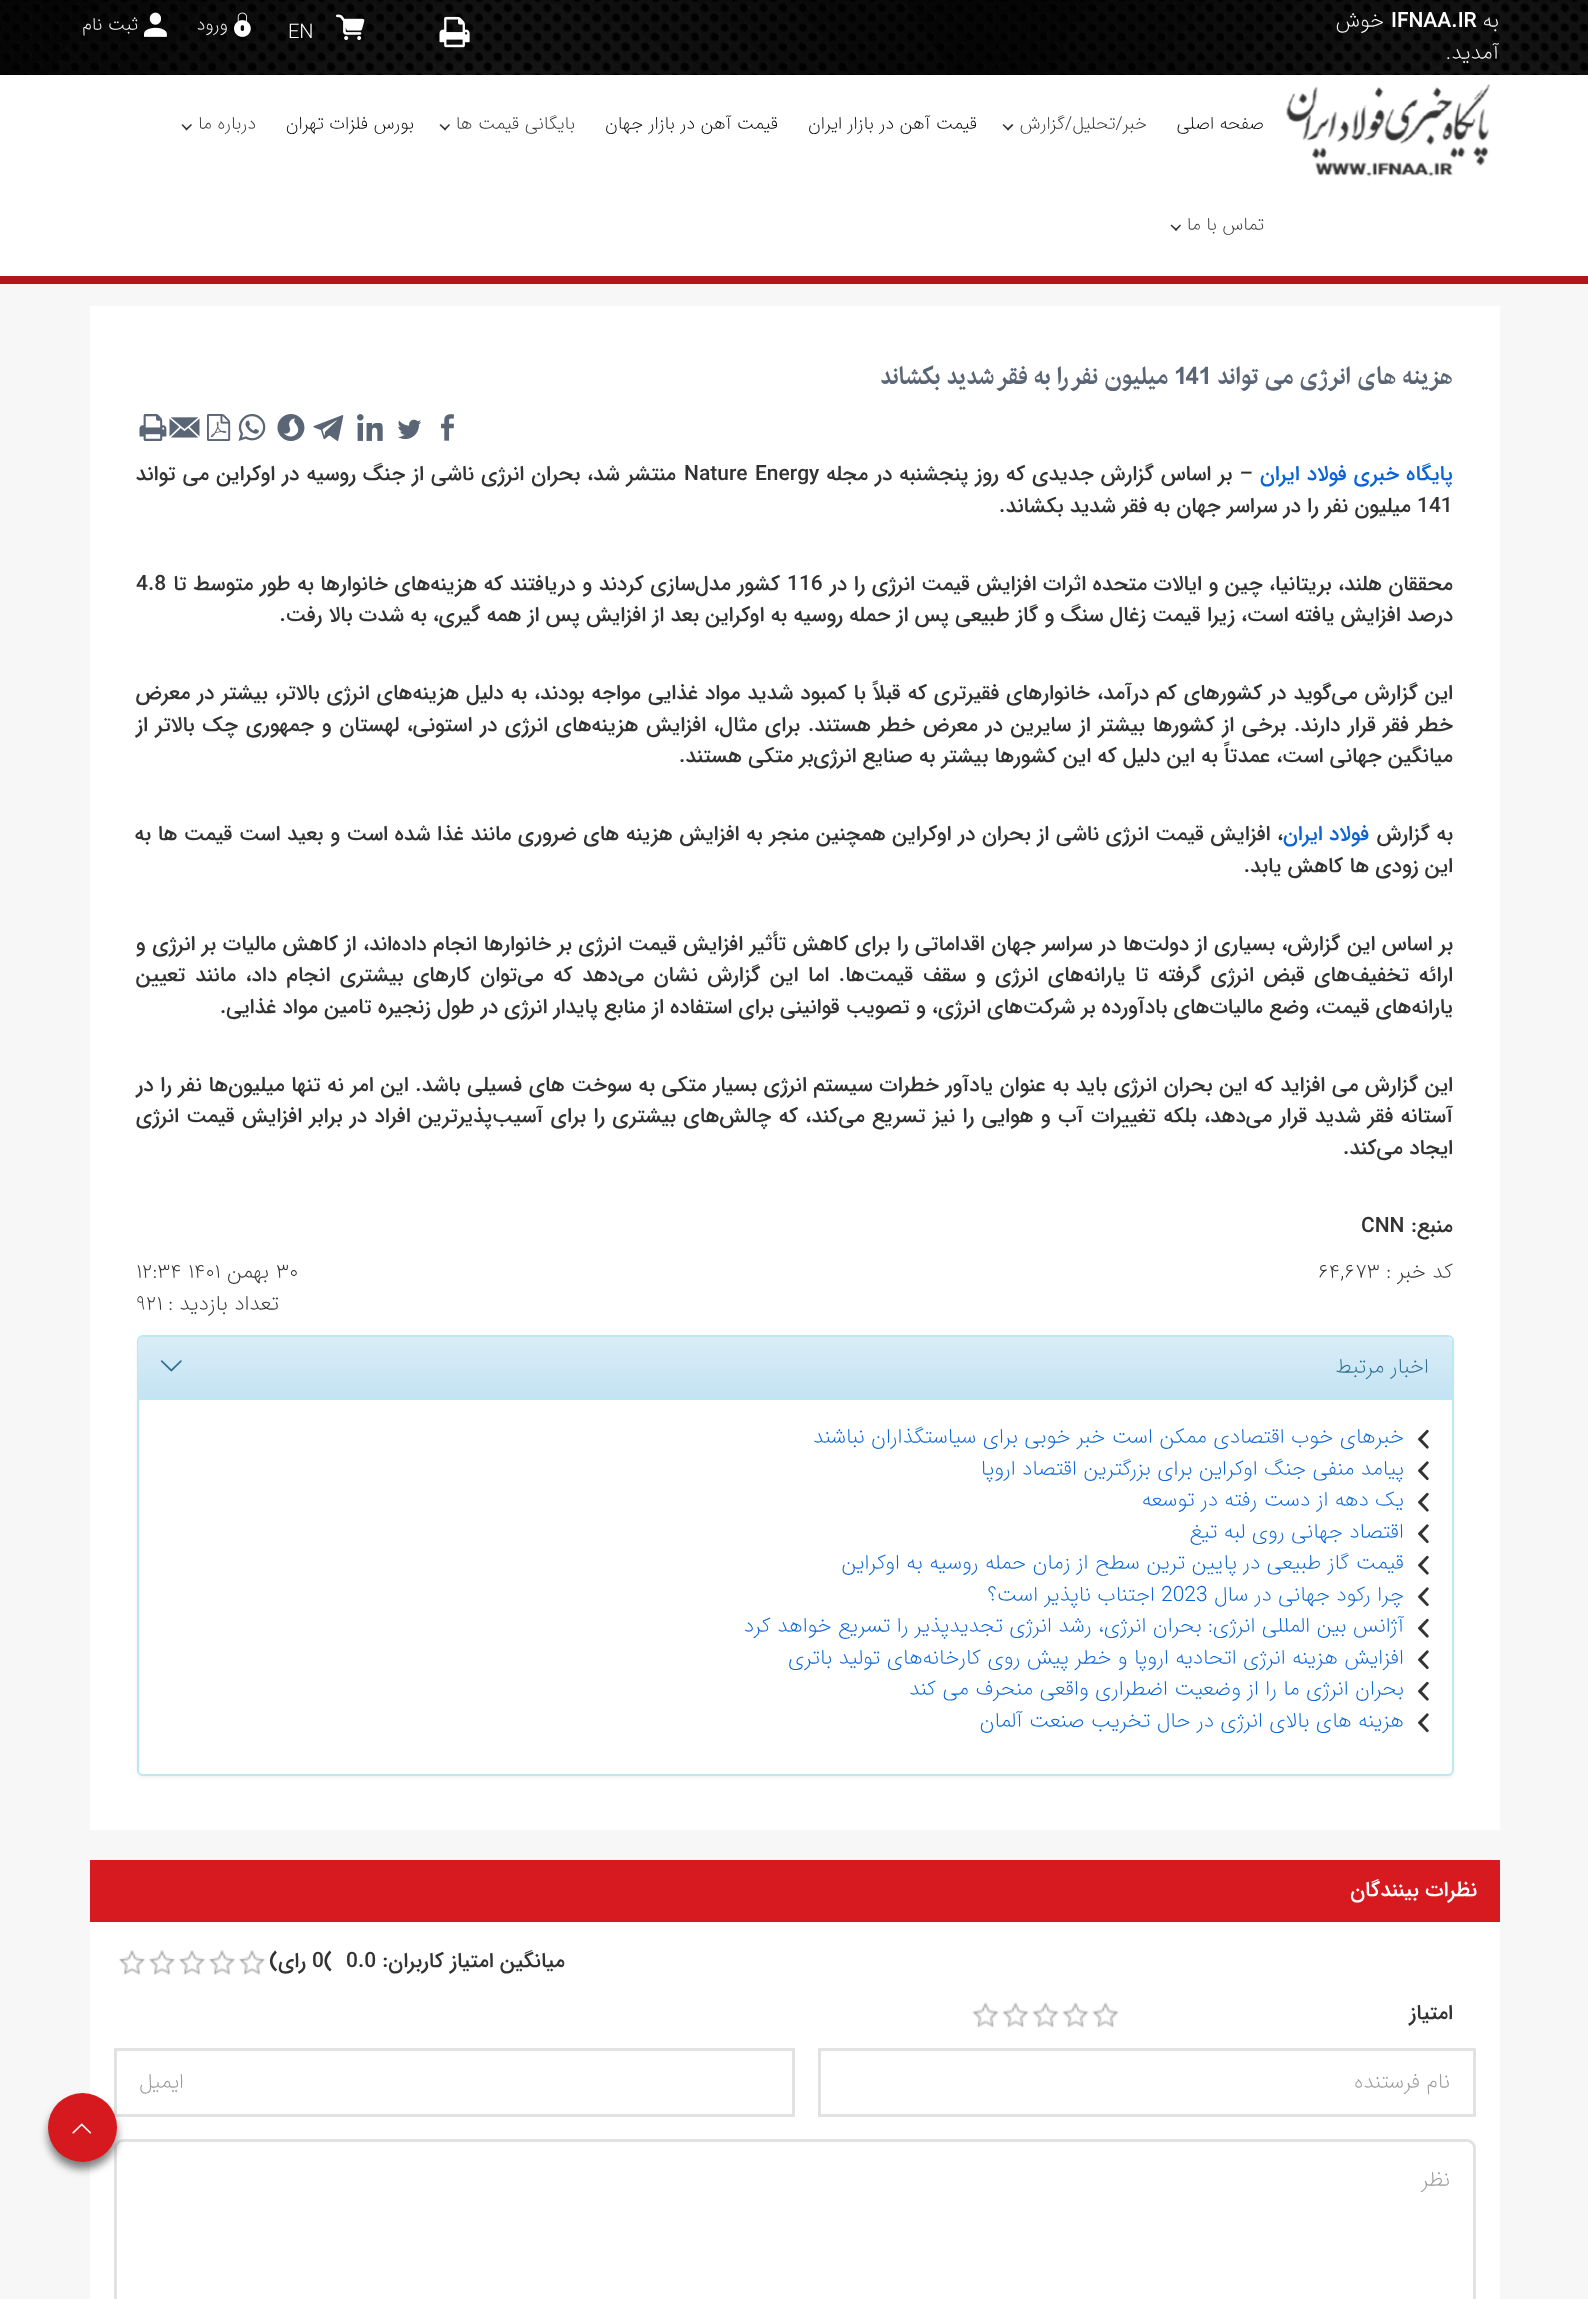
<!DOCTYPE html>
<meta charset="utf-8">
<style>body { margin: 0 } canvas { display: block }</style>
<canvas id="canvas" width="1588" height="2299"></canvas>
<img id="img1" src="images/1.png" hidden>
<img id="img2" src="images/2.png" hidden>
<img id="img3" src="images/3.png" hidden>
<img id="img4" src="images/4.png" hidden>
<img id="img5" src="images/5.png" hidden>
<img id="img6" src="images/6.png" hidden>
<img id="img7" src="images/7.png" hidden>
<img id="img8" src="images/8.png" hidden>
<img id="img9" src="images/9.png" hidden>
<img id="img10" src="images/10.png" hidden>
<img id="img11" src="images/11.png" hidden>
<img id="img12" src="images/12.png" hidden>
<img id="img13" src="images/13.png" hidden>
<img id="img14" src="images/14.png" hidden>
<img id="img15" src="images/15.png" hidden>
<img id="img16" src="images/16.png" hidden>
<img id="img17" src="images/17.png" hidden>
<img id="img18" src="images/18.png" hidden>
<img id="img19" src="images/19.png" hidden>
<img id="img20" src="images/20.png" hidden>
<img id="img21" src="images/21.png" hidden>
<img id="img22" src="images/22.png" hidden>
<script>
window.onload = function () {
    const canvas = document.getElementById('canvas');
    const context = canvas.getContext('2d');
    context.miterLimit = 4;
    context.fontKerning = 'normal';
    let gradient;

    context.fillStyle = 'rgb(247, 247, 247)';
    context.fillRect(0, 0, 1588, 2299);
    context.fillStyle = 'rgb(0, 0, 0)';
    context.fillRect(0, 0, 1588, 75);
    context.drawImage(document.getElementById('img1'), 0, 0, 1588, 75);
    context.drawImage(document.getElementById('img2'), 439, 16, 31, 32);
    context.drawImage(document.getElementById('img3'), 336, 14, 29, 26);
    context.drawImage(document.getElementById('img4'), 234, 12, 17, 25);
    context.drawImage(document.getElementById('img5'), 144, 12, 23, 25);
    context.fillStyle = 'rgb(255, 255, 255)';
    context.fillRect(0, 75, 1588, 201);
    context.fillStyle = 'rgb(178, 21, 26)';
    context.fillRect(0, 276, 1588, 8);
    context.drawImage(document.getElementById('img6'), 1286, 84, 204, 93);
    context.fillStyle = 'rgb(51, 51, 51)';
    context.beginPath();
    context.moveTo(1012, 124);
    context.lineTo(1013.5, 125);
    context.lineTo(1008, 130.5);
    context.lineTo(1007, 129);
    context.closePath();
    context.fill();
    context.beginPath();
    context.moveTo(1003.5, 124);
    context.lineTo(1009, 129);
    context.lineTo(1008, 130.5);
    context.lineTo(1002.5, 125);
    context.closePath();
    context.fill();
    context.beginPath();
    context.moveTo(449, 124);
    context.lineTo(450, 125);
    context.lineTo(445, 130.5);
    context.lineTo(444, 129);
    context.closePath();
    context.fill();
    context.beginPath();
    context.moveTo(440.5, 124);
    context.lineTo(446, 129);
    context.lineTo(445, 130.5);
    context.lineTo(439.5, 125);
    context.closePath();
    context.fill();
    context.beginPath();
    context.moveTo(191, 124);
    context.lineTo(192, 125);
    context.lineTo(186.5, 130.5);
    context.lineTo(185.5, 129);
    context.closePath();
    context.fill();
    context.beginPath();
    context.moveTo(182.5, 124);
    context.lineTo(187.5, 129);
    context.lineTo(186.5, 130.5);
    context.lineTo(181.5, 125);
    context.closePath();
    context.fill();
    context.beginPath();
    context.moveTo(1180, 224.5);
    context.lineTo(1181, 225.5);
    context.lineTo(1176, 231);
    context.lineTo(1175, 229.5);
    context.closePath();
    context.fill();
    context.beginPath();
    context.moveTo(1171.5, 224.5);
    context.lineTo(1177, 229.5);
    context.lineTo(1176, 231);
    context.lineTo(1170.5, 225.5);
    context.closePath();
    context.fill();
    context.fillStyle = 'rgb(255, 255, 255)';
    context.fillRect(90, 306, 1410, 1524);
    context.drawImage(document.getElementById('img7'), 441, 414, 13, 27);
    context.drawImage(document.getElementById('img8'), 397, 419, 25, 21);
    context.drawImage(document.getElementById('img9'), 357, 414, 26, 27);
    context.drawImage(document.getElementById('img10'), 313, 415, 31, 26);
    context.drawImage(document.getElementById('img11'), 277, 414, 28, 27);
    context.drawImage(document.getElementById('img12'), 238, 414, 28, 27);
    context.drawImage(document.getElementById('img13'), 207, 414, 24, 27);
    context.drawImage(document.getElementById('img14'), 169, 417, 31, 21);
    context.drawImage(document.getElementById('img15'), 139, 414, 28, 27);
    context.fillStyle = 'rgba(0, 0, 0, 0.05)';
    context.filter = 'blur(1.5px)';
    context.beginPath();
    context.roundRect(137, 1337, 1317, 441, 6);
    context.fill();
    context.filter = 'none';
    context.fillStyle = 'rgb(255, 255, 255)';
    context.beginPath();
    context.roundRect(138, 1336, 1315, 439, 5);
    context.fill();
    context.strokeStyle = 'rgb(188, 232, 241)';
    context.lineWidth = 2;
    context.stroke();
    gradient = context.createLinearGradient(795, 1337, 795, 1398);
    gradient.addColorStop(0, 'rgb(217, 237, 247)');
    gradient.addColorStop(1, 'rgb(196, 227, 243)');
    context.fillStyle = gradient;
    context.beginPath();
    context.roundRect(138, 1337, 1314, 61, [5, 5, 0, 0]);
    context.fill();
    context.fillStyle = 'rgb(188, 232, 241)';
    context.fillRect(138, 1398, 1314, 2);
    context.drawImage(document.getElementById('img16'), 160, 1360, 22, 12);
    context.drawImage(document.getElementById('img17'), 1418, 1429, 11, 20);
    context.drawImage(document.getElementById('img18'), 1418, 1461, 11, 20);
    context.drawImage(document.getElementById('img17'), 1418, 1492, 11, 20);
    context.drawImage(document.getElementById('img18'), 1418, 1524, 11, 20);
    context.drawImage(document.getElementById('img17'), 1418, 1555, 11, 20);
    context.drawImage(document.getElementById('img18'), 1418, 1587, 11, 20);
    context.drawImage(document.getElementById('img17'), 1418, 1618, 11, 20);
    context.drawImage(document.getElementById('img18'), 1418, 1650, 11, 20);
    context.drawImage(document.getElementById('img17'), 1418, 1681, 11, 20);
    context.drawImage(document.getElementById('img18'), 1418, 1713, 11, 20);
    context.fillStyle = 'rgb(215, 25, 32)';
    context.fillRect(90, 1860, 1410, 62);
    context.fillStyle = 'rgb(255, 255, 255)';
    context.fillRect(90, 1922, 1410, 377);
    context.drawImage(document.getElementById('img19'), 238, 1950, 28, 25);
    context.drawImage(document.getElementById('img19'), 208, 1950, 28, 25);
    context.drawImage(document.getElementById('img20'), 178, 1950, 28, 25);
    context.drawImage(document.getElementById('img19'), 148, 1950, 28, 25);
    context.drawImage(document.getElementById('img19'), 118, 1950, 28, 25);
    context.drawImage(document.getElementById('img21'), 1092, 2002, 27, 26);
    context.drawImage(document.getElementById('img21'), 1062, 2002, 27, 26);
    context.drawImage(document.getElementById('img21'), 1032, 2002, 27, 26);
    context.drawImage(document.getElementById('img21'), 1002, 2002, 27, 26);
    context.drawImage(document.getElementById('img21'), 972, 2002, 27, 26);
    context.strokeStyle = 'rgb(226, 226, 226)';
    context.lineWidth = 3;
    context.strokeRect(819.5, 2049.5, 655, 66);
    context.strokeRect(115.5, 2049.5, 678, 66);
    context.beginPath();
    context.roundRect(115.5, 2140.5, 1359, 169, 7.5);
    context.stroke();
    context.fillStyle = 'rgba(0, 0, 0, 0.5)';
    context.filter = 'blur(4.5px)';
    context.beginPath();
    context.roundRect(48, 2100, 69, 69, 34.5);
    context.fill();
    context.filter = 'none';
    context.fillStyle = 'rgb(214, 24, 31)';
    context.beginPath();
    context.arc(82.5, 2127.5, 34.5, 0, 2 * Math.PI);
    context.fill();
    context.drawImage(document.getElementById('img22'), 72, 2123, 20, 11);
    context.direction = 'rtl';
    context.font = '200 21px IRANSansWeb';
    context.fillStyle = 'rgb(255, 255, 255)';
    context.fillText('به', 1499, 27);
    context.direction = 'ltr';
    context.font = '500 21px IRANSansWeb';
    context.fillText('IFNAA.IR', 1391, 27);
    context.direction = 'rtl';
    context.font = '200 21px IRANSansWeb';
    context.fillText('خوش', 1384, 27);
    context.fillText('آمدید.', 1499, 59);
    context.direction = 'ltr';
    context.font = '200 20px IRANSansWeb';
    context.fillText('EN', 288, 38);
    context.direction = 'rtl';
    context.font = '200 18px IRANSansWeb';
    context.fillText('ورود', 228, 30);
    context.fillText('ثبت نام', 138, 30);
    context.fillStyle = 'rgb(0, 0, 0)';
    context.fillText('صفحه اصلی', 1264, 129);
    context.fillStyle = 'rgb(51, 51, 51)';
    context.fillText('خبر/تحلیل/گزارش', 1147, 129);
    context.fillStyle = 'rgb(0, 0, 0)';
    context.fillText('قیمت آهن در بازار ایران', 977, 129);
    context.fillText('قیمت آهن در بازار جهان', 778, 129);
    context.fillStyle = 'rgb(51, 51, 51)';
    context.fillText('بایگانی قیمت ها', 575, 129);
    context.fillStyle = 'rgb(0, 0, 0)';
    context.fillText('بورس فلزات تهران', 414, 129);
    context.fillStyle = 'rgb(51, 51, 51)';
    context.fillText('درباره ما', 256, 129);
    context.fillText('تماس با ما', 1264, 230);
    context.font = 'bold 24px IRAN';
    context.fillStyle = 'rgb(90, 101, 117)';
    context.fillText('هزینه های انرژی می تواند', 1453, 384);
    context.direction = 'ltr';
    context.fillText('141', 1174, 384);
    context.direction = 'rtl';
    context.fillText('میلیون نفر را به فقر شدید بکشاند', 1168, 384);
    context.wordSpacing = '0.75px';
    context.font = '500 21px IRANSansWeb';
    context.fillStyle = 'rgb(9, 100, 213)';
    context.fillText('پایگاه خبری فولاد ایران', 1453, 480);
    context.fillStyle = 'rgb(51, 51, 51)';
    context.fillText('– بر اساس گزارش جدیدی که روز پنجشنبه در مجله', 1253, 480);
    context.wordSpacing = '1px';
    context.direction = 'ltr';
    context.fillText('Nature Energy', 684, 480);
    context.wordSpacing = '0.75px';
    context.direction = 'rtl';
    context.fillText('منتشر شد، بحران انرژی ناشی از جنگ روسیه در اوکراین می تواند', 676, 480);
    context.wordSpacing = '0px';
    context.direction = 'ltr';
    context.fillText('141', 1417, 512);
    context.direction = 'rtl';
    context.fillText('میلیون نفر را در سراسر جهان به فقر شدید بکشاند.', 1411, 512);
    context.wordSpacing = '0.25px';
    context.fillText('محققان هلند، بریتانیا، چین و ایالات متحده اثرات افزایش قیمت انرژی را در', 1453, 590);
    context.wordSpacing = '0px';
    context.direction = 'ltr';
    context.fillText('116', 787, 590);
    context.wordSpacing = '0.25px';
    context.direction = 'rtl';
    context.fillText('کشور مدل‌سازی کردند و دریافتند که هزینه‌های خانوارها به طور متوسط تا', 780, 590);
    context.wordSpacing = '0px';
    context.direction = 'ltr';
    context.fillText('4.8', 136, 590);
    context.direction = 'rtl';
    context.fillText('درصد افزایش یافته است، زیرا قیمت زغال سنگ و گاز طبیعی پس از حمله روسیه به اوکراین بعد از افزایش پس از همه گیری، به شدت بالا رفت.', 1453, 621);
    context.wordSpacing = '0.7px';
    context.fillText('این گزارش می‌گوید در کشورهای کم درآمد، خانوارهای فقیرتری که قبلاً با کمبود شدید مواد غذایی مواجه بودند، به دلیل هزینه‌های انرژی بالاتر، بیشتر در معرض', 1453, 699);
    context.wordSpacing = '1.45px';
    context.fillText('خطر فقر قرار دارند. برخی از کشورها بیشتر از سایرین در معرض خطر هستند. برای مثال، افزایش هزینه‌های انرژی در استونی، لهستان و جمهوری چک بالاتر از', 1453, 731);
    context.wordSpacing = '0px';
    context.fillText('میانگین جهانی است، عمدتاً به این دلیل که این کشورها بیشتر به صنایع انرژی‌بر متکی هستند.', 1453, 762);
    context.wordSpacing = '0.4px';
    context.fillText('به گزارش', 1453, 840);
    context.wordSpacing = '0px';
    context.fillStyle = 'rgb(9, 100, 213)';
    context.fillText('فولاد ایران', 1369, 840);
    context.wordSpacing = '0.4px';
    context.fillStyle = 'rgb(51, 51, 51)';
    context.fillText('، افزایش قیمت انرژی ناشی از بحران در اوکراین همچنین منجر به افزایش هزینه های ضروری مانند غذا شده است و بعید است قیمت ها به', 1283, 840);
    context.wordSpacing = '0px';
    context.fillText('این زودی ها کاهش یابد.', 1453, 872);
    context.wordSpacing = '0.35px';
    context.fillText('بر اساس این گزارش، بسیاری از دولت‌ها در سراسر جهان اقداماتی را برای کاهش تأثیر افزایش قیمت انرژی بر خانوارها انجام داده‌اند، از کاهش مالیات بر انرژی و', 1453, 950);
    context.wordSpacing = '3.3px';
    context.fillText('ارائه تخفیف‌های قبض انرژی گرفته تا یارانه‌های انرژی و سقف قیمت‌ها. اما این گزارش نشان می‌دهد که می‌توان کارهای بیشتری انجام داد، مانند تعیین', 1453, 981);
    context.wordSpacing = '0px';
    context.fillText('یارانه‌های قیمت، وضع مالیات‌های بادآورده بر شرکت‌های انرژی، و تصویب قوانینی برای استفاده از منابع پایدار انرژی در طول زنجیره تامین مواد غذایی.', 1453, 1013);
    context.wordSpacing = '0.4px';
    context.fillText('این گزارش می افزاید که این بحران انرژی باید به عنوان یادآور خطرات سیستم انرژی بسیار متکی به سوخت های فسیلی باشد. این امر نه تنها میلیون‌ها نفر را در', 1453, 1091);
    context.wordSpacing = '1.15px';
    context.fillText('آستانه فقر شدید قرار می‌دهد، بلکه تغییرات آب و هوایی را نیز تسریع می‌کند، که چالش‌های بیشتری را برای آسیب‌پذیرترین افراد در برابر افزایش قیمت انرژی', 1453, 1122);
    context.wordSpacing = '0px';
    context.fillText('ایجاد می‌کند.', 1453, 1154);
    context.fillText('منبع:', 1453, 1232);
    context.direction = 'ltr';
    context.fillText('CNN', 1361, 1232);
    context.direction = 'rtl';
    context.font = '200 21px IRANSansWeb';
    context.fillText('کد خبر :', 1453, 1278);
    context.direction = 'ltr';
    context.fillText('۶۴,۶۷۳', 1318, 1278);
    context.fillText('۳۰', 276, 1278);
    context.direction = 'rtl';
    context.fillText('بهمن', 269, 1278);
    context.direction = 'ltr';
    context.fillText('۱۴۰۱', 188, 1278);
    context.fillText('۱۲:۳۴', 136, 1278);
    context.direction = 'rtl';
    context.fillText('تعداد بازدید :', 279, 1310);
    context.direction = 'ltr';
    context.fillText('۹۲۱', 136, 1310);
    context.direction = 'rtl';
    context.fillStyle = 'rgb(49, 112, 143)';
    context.fillText('اخبار مرتبط', 1429, 1373);
    context.fillStyle = 'rgb(9, 100, 213)';
    context.fillText('خبرهای خوب اقتصادی ممکن است خبر خوبی برای سیاستگذاران نباشند', 1404, 1443);
    context.fillText('پیامد منفی جنگ اوکراین برای بزرگترین اقتصاد اروپا', 1404, 1475);
    context.fillText('یک دهه از دست رفته در توسعه', 1404, 1506);
    context.fillText('اقتصاد جهانی روی لبه تیغ', 1404, 1538);
    context.fillText('قیمت گاز طبیعی در پایین ترین سطح از زمان حمله روسیه به اوکراین', 1404, 1569);
    context.fillText('چرا رکود جهانی در سال', 1404, 1601);
    context.direction = 'ltr';
    context.fillText('2023', 1161, 1601);
    context.direction = 'rtl';
    context.fillText('اجتناب ناپذیر است؟', 1155, 1601);
    context.fillText('آژانس بین المللی انرژی: بحران انرژی، رشد انرژی تجدیدپذیر را تسریع خواهد کرد', 1404, 1632);
    context.fillText('افزایش هزینه‌ انرژی اتحادیه اروپا و خطر پیش روی کارخانه‌های تولید باتری', 1404, 1664);
    context.fillText('بحران انرژی ما را از وضعیت اضطراری واقعی منحرف می کند', 1404, 1695);
    context.fillText('هزینه های بالای انرژی در حال تخریب صنعت آلمان', 1404, 1727);
    context.font = '500 21px IRANSansWeb';
    context.fillStyle = 'rgb(255, 255, 255)';
    context.fillText('نظرات بینندگان', 1477, 1896);
    context.fillStyle = 'rgb(51, 51, 51)';
    context.fillText('میانگین امتیاز کاربران:', 565, 1967);
    context.direction = 'ltr';
    context.fillText('0.0', 346, 1967);
    context.fillText('0(', 312, 1967);
    context.direction = 'rtl';
    context.fillText('رای)', 306, 1967);
    context.fillText('امتیاز', 1453, 2019);
    context.font = '200 21px IRANSansWeb';
    context.fillStyle = 'rgb(153, 153, 153)';
    context.fillText('نام فرستنده', 1450, 2088);
    context.fillText('ایمیل', 184, 2088);
    context.fillText('نظر', 1450, 2186);
};
</script>
